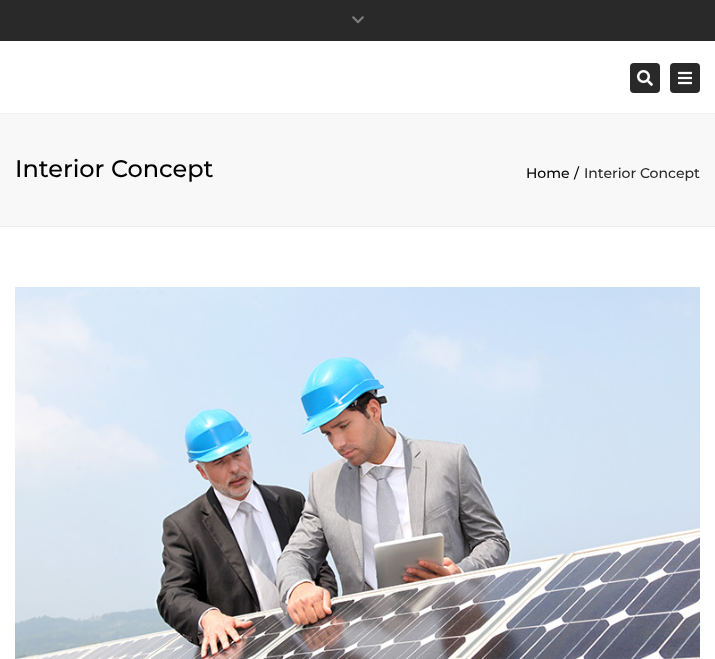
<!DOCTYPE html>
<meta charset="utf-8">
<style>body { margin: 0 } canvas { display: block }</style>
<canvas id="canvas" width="715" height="659"></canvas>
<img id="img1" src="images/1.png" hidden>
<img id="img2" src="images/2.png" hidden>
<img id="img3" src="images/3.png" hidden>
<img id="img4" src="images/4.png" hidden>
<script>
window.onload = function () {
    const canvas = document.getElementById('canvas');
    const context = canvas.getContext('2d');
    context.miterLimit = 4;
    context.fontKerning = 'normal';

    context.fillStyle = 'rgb(255, 255, 255)';
    context.fillRect(0, 0, 715, 659);
    context.fillStyle = 'rgb(41, 41, 41)';
    context.fillRect(0, 0, 715, 40);
    context.fillStyle = 'rgb(39, 39, 39)';
    context.fillRect(0, 40, 715, 1);
    context.drawImage(document.getElementById('img1'), 352, 16, 12, 8);
    context.fillStyle = 'rgb(242, 242, 242)';
    context.fillRect(0, 113, 715, 1);
    context.fillStyle = 'rgb(41, 41, 41)';
    context.beginPath();
    context.roundRect(630, 63, 30, 30, 4);
    context.fill();
    context.drawImage(document.getElementById('img2'), 637, 70, 16, 16);
    context.beginPath();
    context.roundRect(670, 63, 30, 30, 4);
    context.fill();
    context.drawImage(document.getElementById('img3'), 678, 71, 14, 14);
    context.fillStyle = 'rgb(248, 248, 248)';
    context.fillRect(0, 114, 715, 112);
    context.fillStyle = 'rgb(237, 237, 237)';
    context.fillRect(0, 226, 715, 1);
    context.drawImage(document.getElementById('img4'), 15, 287, 685, 372);
    context.font = '500 24px Montserrat';
    context.fillStyle = 'rgb(0, 0, 0)';
    context.fillText('Interior Concept', 15, 177);
    context.font = '500 14px Montserrat';
    context.fillText('Home', 526, 178);
    context.fillText('/', 574, 178);
    context.fillStyle = 'rgb(41, 41, 41)';
    context.fillText('Interior Concept', 584, 178);
};
</script>
